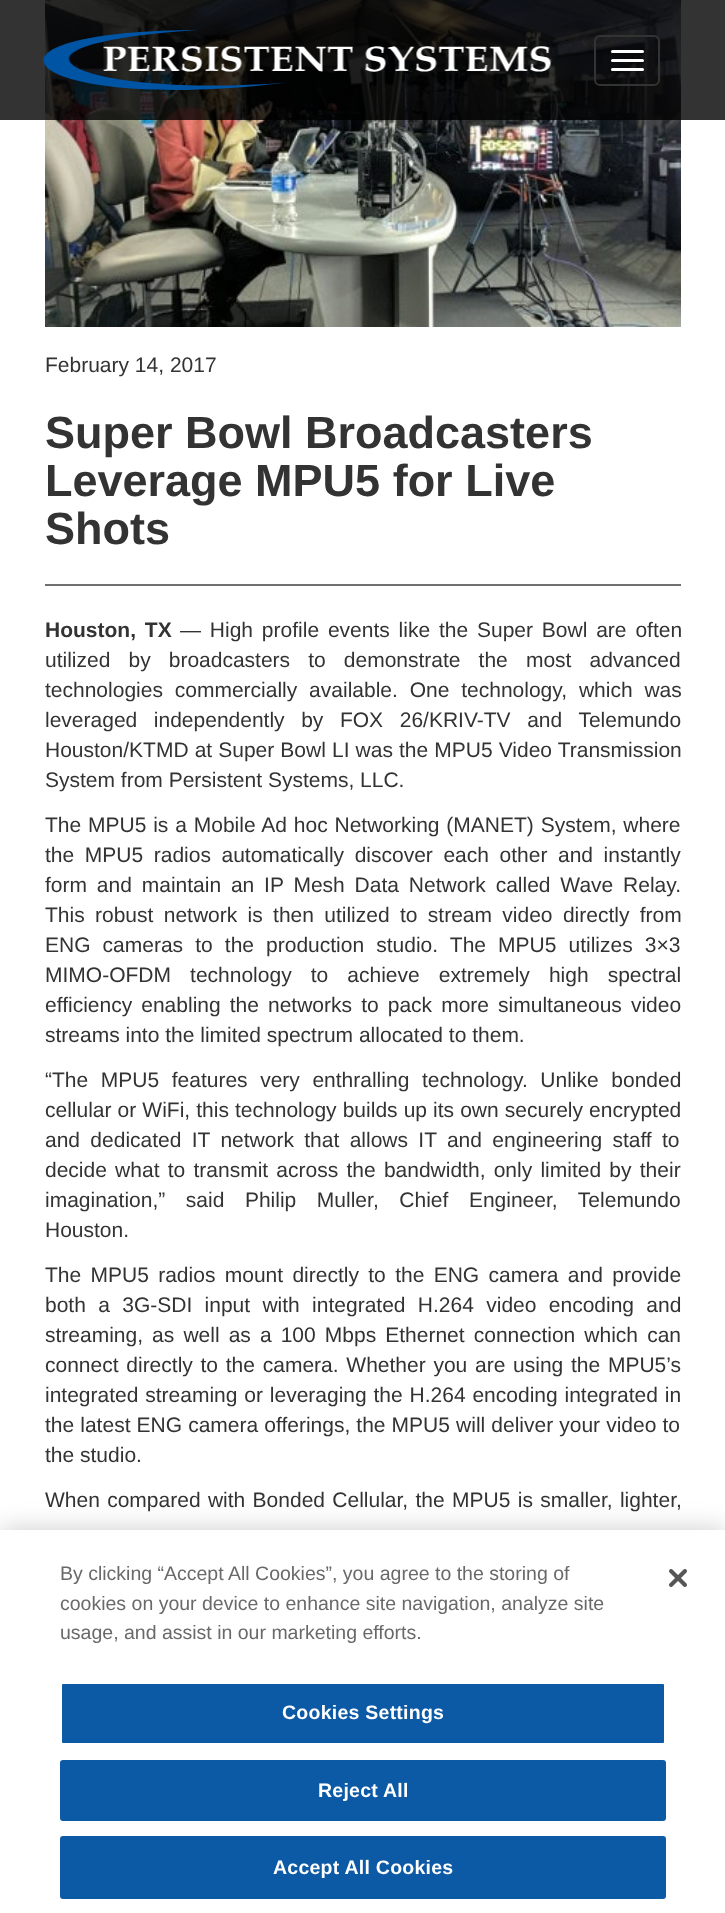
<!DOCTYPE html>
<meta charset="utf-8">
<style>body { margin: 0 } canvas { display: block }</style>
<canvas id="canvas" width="725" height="1913"></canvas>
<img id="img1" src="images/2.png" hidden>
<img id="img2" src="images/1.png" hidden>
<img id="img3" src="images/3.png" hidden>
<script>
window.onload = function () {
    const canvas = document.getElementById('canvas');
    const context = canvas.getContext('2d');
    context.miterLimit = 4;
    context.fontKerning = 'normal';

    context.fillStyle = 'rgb(255, 255, 255)';
    context.fillRect(0, 0, 725, 1913);
    context.drawImage(document.getElementById('img1'), 45, 0, 636, 327);
    context.fillStyle = 'rgba(0, 0, 0, 0.8)';
    context.fillRect(0, 0, 725, 120);
    context.drawImage(document.getElementById('img2'), 43, 30, 508, 60);
    context.beginPath();
    context.roundRect(595, 36, 64, 49, 5);
    context.strokeStyle = 'rgb(51, 51, 51)';
    context.lineWidth = 2;
    context.stroke();
    context.fillStyle = 'rgb(255, 255, 255)';
    context.beginPath();
    context.roundRect(611, 50, 33, 3, 1.5);
    context.fill();
    context.beginPath();
    context.roundRect(611, 59, 33, 3, 1.5);
    context.fill();
    context.beginPath();
    context.roundRect(611, 68, 33, 3, 1.5);
    context.fill();
    context.fillStyle = 'rgb(112, 112, 112)';
    context.fillRect(45, 584, 636, 2);
    context.fillStyle = 'rgba(0, 0, 0, 0.2)';
    context.filter = 'blur(13.5px)';
    context.beginPath();
    context.rect(0, 1530, 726, 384);
    context.fill();
    context.filter = 'none';
    context.fillStyle = 'rgb(255, 255, 255)';
    context.fillRect(0, 1530, 725, 383);
    context.fillStyle = 'rgb(12, 89, 165)';
    context.beginPath();
    context.roundRect(61, 1683, 604, 61, 2);
    context.fill();
    context.strokeStyle = 'rgb(255, 255, 255)';
    context.stroke();
    context.beginPath();
    context.roundRect(61, 1761, 604, 59, 2);
    context.fill();
    context.strokeStyle = 'rgb(12, 89, 165)';
    context.stroke();
    context.beginPath();
    context.roundRect(61, 1837, 604, 61, 2);
    context.fill();
    context.stroke();
    context.drawImage(document.getElementById('img3'), 669, 1569, 18, 18);
    context.font = '21px Liberation Sans';
    context.fillStyle = 'rgb(51, 51, 51)';
    context.fillText('February 14, 2017', 45, 372);
    context.font = 'bold 45px Liberation Sans';
    context.fillText('Super Bowl Broadcasters', 45, 448);
    context.fillText('Leverage MPU5 for Live', 45, 496);
    context.fillText('Shots', 45, 544);
    context.wordSpacing = '3px';
    context.font = 'bold 21px Liberation Sans';
    context.fillText('Houston, TX', 45, 637);
    context.font = '21px Liberation Sans';
    context.fillText('— High profile events like the Super Bowl are often', 180, 637);
    context.wordSpacing = '12.25px';
    context.fillText('utilized by broadcasters to demonstrate the most advanced', 45, 667);
    context.wordSpacing = '6px';
    context.fillText('technologies commercially available. One technology, which was', 45, 697);
    context.wordSpacing = '10.75px';
    context.fillText('leveraged independently by FOX 26/KRIV-TV and Telemundo', 45, 727);
    context.wordSpacing = '0.25px';
    context.fillText('Houston/KTMD at Super Bowl LI was the MPU5 Video Transmission', 45, 757);
    context.wordSpacing = '0px';
    context.fillText('System from Persistent Systems, LLC.', 45, 787);
    context.wordSpacing = '1px';
    context.fillText('The MPU5 is a Mobile Ad hoc Networking (MANET) System, where', 45, 832);
    context.wordSpacing = '4.75px';
    context.fillText('the MPU5 radios automatically discover each other and instantly', 45, 862);
    context.wordSpacing = '4px';
    context.fillText('form and maintain an IP Mesh Data Network called Wave Relay.', 45, 892);
    context.wordSpacing = '4.5px';
    context.fillText('This robust network is then utilized to stream video directly from', 45, 922);
    context.wordSpacing = '6.25px';
    context.fillText('ENG cameras to the production studio. The MPU5 utilizes 3×3', 45, 952);
    context.wordSpacing = '13.25px';
    context.fillText('MIMO-OFDM technology to achieve extremely high spectral', 45, 982);
    context.wordSpacing = '3.25px';
    context.fillText('efficiency enabling the networks to pack more simultaneous video', 45, 1012);
    context.wordSpacing = '0px';
    context.fillText('streams into the limited spectrum allocated to them.', 45, 1042);
    context.wordSpacing = '6.75px';
    context.fillText('“The MPU5 features very enthralling technology. Unlike bonded', 45, 1087);
    context.wordSpacing = '0.25px';
    context.fillText('cellular or WiFi, this technology builds up its own securely encrypted', 45, 1117);
    context.wordSpacing = '4.5px';
    context.fillText('and dedicated IT network that allows IT and engineering staff to', 45, 1147);
    context.wordSpacing = '2.4px';
    context.fillText('decide what to transmit across the bandwidth, only limited by their', 45, 1177);
    context.wordSpacing = '14.75px';
    context.fillText('imagination,” said Philip Muller, Chief Engineer, Telemundo', 45, 1207);
    context.wordSpacing = '0px';
    context.fillText('Houston.', 45, 1237);
    context.wordSpacing = '3.5px';
    context.fillText('The MPU5 radios mount directly to the ENG camera and provide', 45, 1282);
    context.wordSpacing = '6.5px';
    context.fillText('both a 3G-SDI input with integrated H.264 video encoding and', 45, 1312);
    context.wordSpacing = '3.25px';
    context.fillText('streaming, as well as a 100 Mbps Ethernet connection which can', 45, 1342);
    context.wordSpacing = '1.9px';
    context.fillText('connect directly to the camera. Whether you are using the MPU5’s', 45, 1372);
    context.wordSpacing = '1px';
    context.fillText('integrated streaming or leveraging the H.264 encoding integrated in', 45, 1402);
    context.wordSpacing = '0.25px';
    context.fillText('the latest ENG camera offerings, the MPU5 will deliver your video to', 45, 1432);
    context.wordSpacing = '0px';
    context.fillText('the studio.', 45, 1462);
    context.wordSpacing = '1.5px';
    context.fillText('When compared with Bonded Cellular, the MPU5 is smaller, lighter,', 45, 1507);
    context.wordSpacing = '0px';
    context.font = '19.5px Liberation Sans';
    context.fillStyle = 'rgb(105, 105, 105)';
    context.fillText('By clicking “Accept All Cookies”, you agree to the storing of', 60, 1580);
    context.fillText('cookies on your device to enhance site navigation, analyze site', 60, 1610);
    context.fillText('usage, and assist in our marketing efforts.', 60, 1639);
    context.letterSpacing = '0.25px';
    context.font = 'bold 19.5px Liberation Sans';
    context.fillStyle = 'rgb(255, 255, 255)';
    context.fillText('Cookies Settings', 282, 1719);
    context.fillText('Reject All', 318, 1797);
    context.fillText('Accept All Cookies', 273, 1874);
};
</script>
